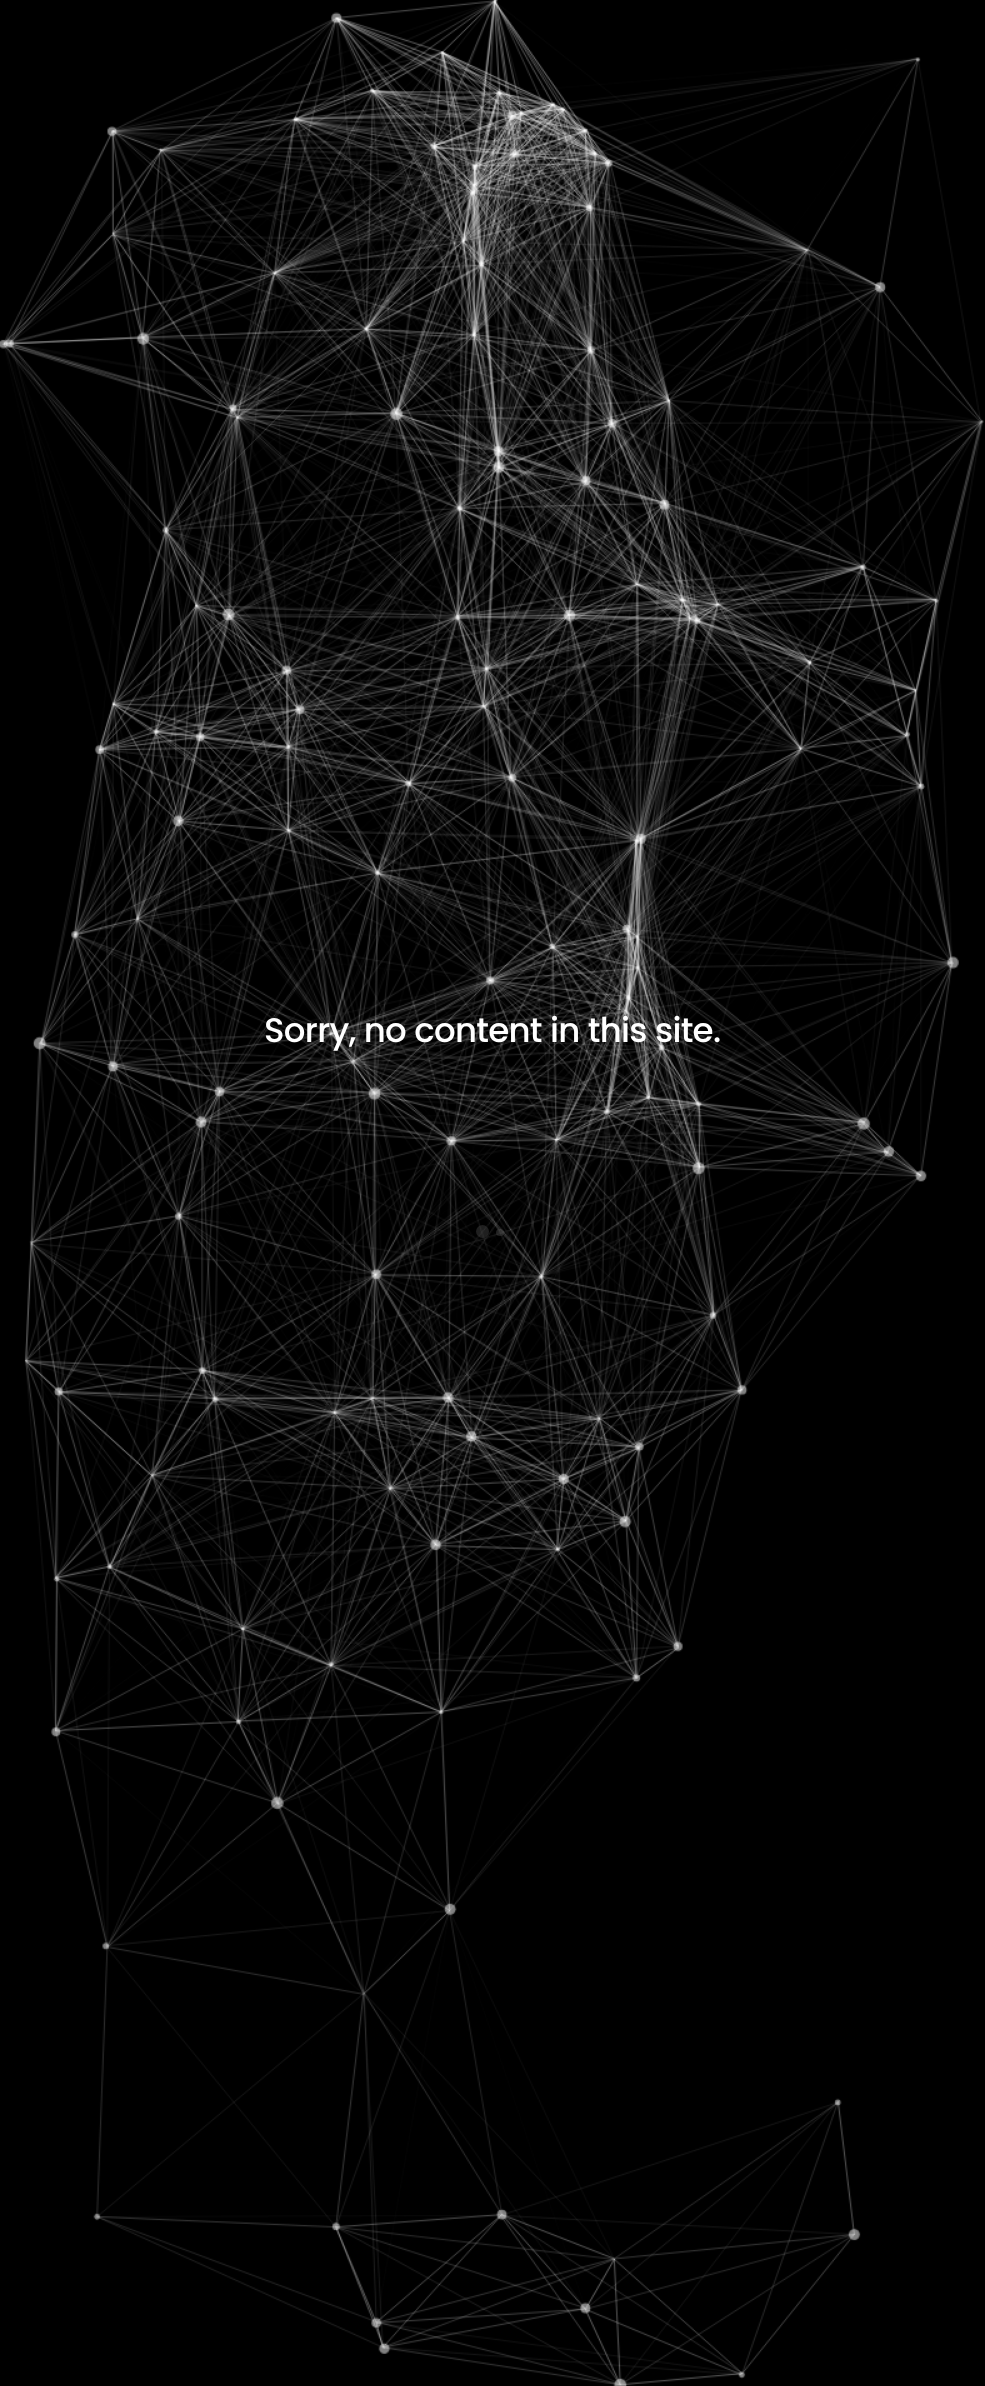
<!DOCTYPE html>
<meta charset="utf-8">
<style>body { margin: 0 } canvas { display: block }</style>
<canvas id="canvas" width="985" height="2386"></canvas>
<img id="img1" src="images/1.png" hidden>
<script>
window.onload = function () {
    const canvas = document.getElementById('canvas');
    const context = canvas.getContext('2d');
    context.miterLimit = 4;
    context.fontKerning = 'normal';

    context.fillStyle = 'rgb(0, 0, 0)';
    context.fillRect(0, 0, 985, 2386);
    context.drawImage(document.getElementById('img1'), 0, 0, 984, 2386);
    context.fillStyle = 'rgba(102, 102, 102, 0.3)';
    context.beginPath();
    context.arc(482.5, 1231.5, 6.5, 0, 2 * Math.PI);
    context.fill();
    context.beginPath();
    context.roundRect(496, 1229, 8, 7, 3.5);
    context.fill();
    context.letterSpacing = '-0.7px';
    context.font = '500 34px Poppins';
    context.fillStyle = 'rgb(255, 255, 255)';
    context.fillText('Sorry, no content in this site.', 264, 1042);
};
</script>
